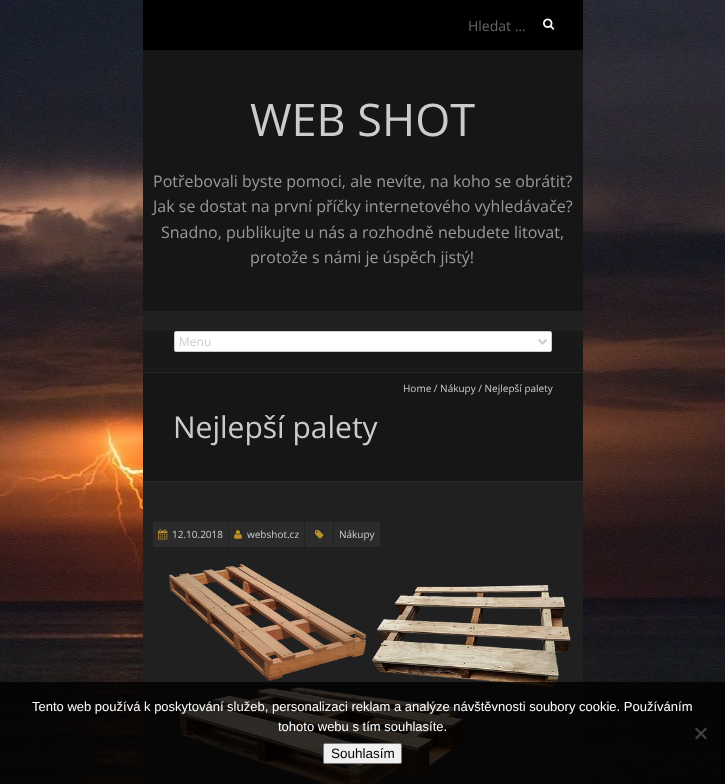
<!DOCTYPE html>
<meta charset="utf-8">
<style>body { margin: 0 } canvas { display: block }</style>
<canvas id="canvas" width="725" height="784"></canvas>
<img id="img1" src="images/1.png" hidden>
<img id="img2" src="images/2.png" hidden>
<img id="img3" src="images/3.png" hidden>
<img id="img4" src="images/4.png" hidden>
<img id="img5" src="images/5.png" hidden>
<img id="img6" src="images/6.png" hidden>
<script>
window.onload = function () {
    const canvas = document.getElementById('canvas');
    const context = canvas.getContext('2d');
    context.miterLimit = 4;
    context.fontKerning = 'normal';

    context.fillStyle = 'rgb(255, 255, 255)';
    context.fillRect(0, 0, 725, 784);
    context.drawImage(document.getElementById('img1'), 0, 0, 725, 784);
    context.fillStyle = 'rgb(32, 32, 32)';
    context.fillRect(143, 311, 440, 473);
    context.fillStyle = 'rgb(0, 0, 0)';
    context.fillRect(143, 0, 440, 50);
    context.drawImage(document.getElementById('img2'), 543, 18, 12, 12);
    context.fillStyle = 'rgb(22, 22, 22)';
    context.fillRect(143, 50, 440, 261);
    context.fillStyle = 'rgb(25, 25, 25)';
    context.fillRect(143, 331, 440, 41);
    context.fillStyle = 'rgb(37, 37, 37)';
    context.fillRect(143, 372, 440, 1);
    context.fillStyle = 'rgb(255, 255, 255)';
    context.beginPath();
    context.roundRect(174.5, 331.5, 377, 20, 1.5);
    context.fill();
    context.strokeStyle = 'rgb(204, 204, 204)';
    context.stroke();
    context.beginPath();
    context.moveTo(538.5, 339.5);
    context.lineTo(542.5, 343.5);
    context.lineTo(546.5, 339.5);
    context.lineWidth = 2;
    context.stroke();
    context.fillStyle = 'rgb(22, 22, 22)';
    context.fillRect(143, 373, 440, 108);
    context.fillStyle = 'rgb(41, 41, 41)';
    context.fillRect(143, 481, 440, 1);
    context.fillStyle = 'rgb(43, 43, 43)';
    context.fillRect(153, 522, 75, 25);
    context.drawImage(document.getElementById('img3'), 158, 529, 10, 11);
    context.fillRect(229, 522, 75, 25);
    context.drawImage(document.getElementById('img4'), 234, 530, 8, 9);
    context.fillRect(305, 522, 28, 25);
    context.drawImage(document.getElementById('img5'), 315, 530, 9, 9);
    context.fillRect(334, 522, 46, 25);
    context.drawImage(document.getElementById('img6'), 169, 564, 402, 220);
    context.fillStyle = 'rgba(0, 0, 0, 0.8)';
    context.fillRect(0, 682, 725, 102);
    context.fillStyle = 'rgb(66, 67, 67)';
    context.beginPath();
    context.moveTo(705.5, 727.5);
    context.lineTo(707, 729);
    context.lineTo(696.5, 739.5);
    context.lineTo(695, 738);
    context.closePath();
    context.fill();
    context.beginPath();
    context.moveTo(695, 729);
    context.lineTo(696.5, 727.5);
    context.lineTo(707, 738);
    context.lineTo(705.5, 739.5);
    context.closePath();
    context.fill();
    context.fillStyle = 'rgb(239, 239, 239)';
    context.beginPath();
    context.roundRect(323.5, 743.5, 78, 20, 1.5);
    context.fill();
    context.strokeStyle = 'rgb(118, 118, 118)';
    context.lineWidth = 1;
    context.stroke();
    context.font = '14px Open Sans';
    context.fillStyle = 'rgb(102, 102, 102)';
    context.fillText('Hledat …', 468, 31);
    context.font = '45px Open Sans';
    context.fillStyle = 'rgb(204, 204, 204)';
    context.fillText('WEB SHOT', 250, 136);
    context.font = '16px Open Sans';
    context.fillStyle = 'rgb(153, 153, 153)';
    context.fillText('Potřebovali byste pomoci, ale nevíte, na koho se obrátit?', 153, 187);
    context.fillText('Jak se dostat na první příčky internetového vyhledávače?', 153, 212);
    context.fillText('Snadno, publikujte u nás a rozhodně nebudete litovat,', 161, 238);
    context.fillText('protože s námi je úspěch jistý!', 250, 263);
    context.font = '12px Open Sans';
    context.fillStyle = 'rgb(204, 204, 204)';
    context.fillText('Menu', 179, 346);
    context.font = '10px Open Sans';
    context.fillText('Home / Nákupy / Nejlepší palety', 403, 392);
    context.font = '30px Open Sans';
    context.fillText('Nejlepší palety', 173, 438);
    context.font = '10px Open Sans';
    context.fillText('12.10.2018', 172, 538);
    context.fillText('webshot.cz', 247, 538);
    context.fillText('Nákupy', 339, 538);
    context.font = '13px Liberation Sans';
    context.fillStyle = 'rgb(255, 255, 255)';
    context.fillText('Tento web používá k poskytování služeb, personalizaci reklam a analýze návštěvnosti soubory cookie. Používáním', 32, 711);
    context.fillText('tohoto webu s tím souhlasíte.', 278, 731);
    context.font = '13.5px Liberation Sans';
    context.fillStyle = 'rgb(0, 0, 0)';
    context.fillText('Souhlasím', 331, 758);
};
</script>
